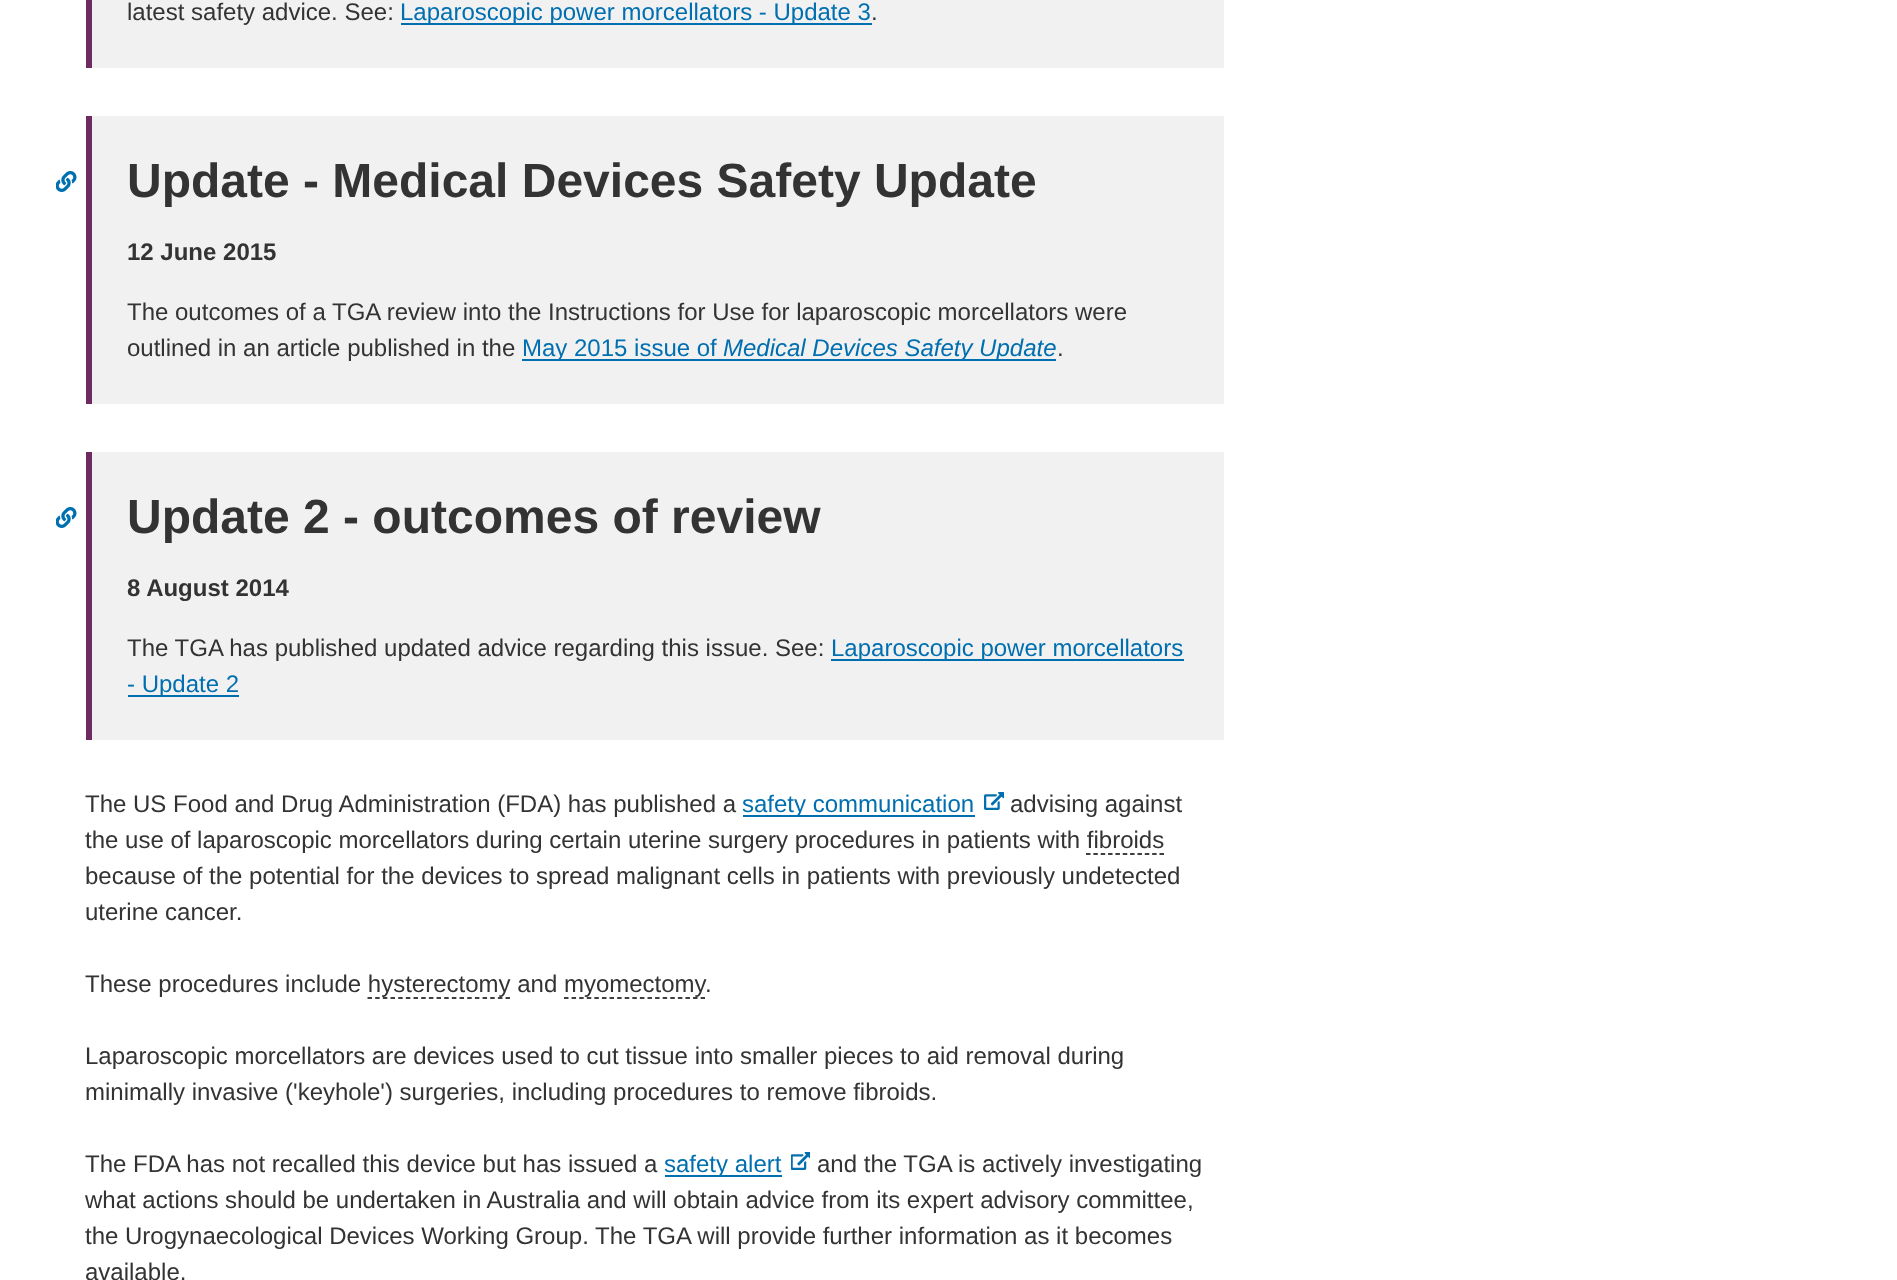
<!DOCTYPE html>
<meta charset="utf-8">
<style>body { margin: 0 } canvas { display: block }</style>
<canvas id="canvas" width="1897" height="1280"></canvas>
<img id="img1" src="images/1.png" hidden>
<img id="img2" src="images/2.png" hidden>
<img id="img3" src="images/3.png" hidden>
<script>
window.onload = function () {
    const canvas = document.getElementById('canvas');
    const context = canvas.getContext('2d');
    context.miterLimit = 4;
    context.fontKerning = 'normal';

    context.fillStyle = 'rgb(255, 255, 255)';
    context.fillRect(0, 0, 1897, 1280);
    context.fillStyle = 'rgb(241, 241, 242)';
    context.fillRect(92, 0, 1132, 68);
    context.fillStyle = 'rgb(110, 43, 98)';
    context.fillRect(86, 0, 6, 68);
    context.fillStyle = 'rgb(0, 111, 176)';
    context.fillRect(401, 23, 471, 2);
    context.fillStyle = 'rgb(241, 241, 242)';
    context.fillRect(92, 116, 1132, 288);
    context.fillStyle = 'rgb(110, 43, 98)';
    context.fillRect(86, 116, 6, 288);
    context.drawImage(document.getElementById('img1'), 56, 171, 21, 21);
    context.fillStyle = 'rgb(0, 111, 176)';
    context.fillRect(522, 359, 534, 2);
    context.fillStyle = 'rgb(241, 241, 242)';
    context.fillRect(92, 452, 1132, 288);
    context.fillStyle = 'rgb(110, 43, 98)';
    context.fillRect(86, 452, 6, 288);
    context.drawImage(document.getElementById('img1'), 56, 507, 21, 21);
    context.fillStyle = 'rgb(0, 111, 176)';
    context.fillRect(831, 659, 353, 2);
    context.fillRect(128, 695, 111, 2);
    context.fillRect(743, 815, 232, 2);
    context.drawImage(document.getElementById('img2'), 984, 792, 20, 18);
    context.beginPath();
    context.moveTo(1086, 854);
    context.lineTo(1164, 854);
    context.strokeStyle = 'rgb(0, 0, 0)';
    context.lineWidth = 1.5;
    context.setLineDash([4.5, 2.85]);
    context.stroke();
    context.beginPath();
    context.moveTo(367.5, 998);
    context.lineTo(510, 998);
    context.setLineDash([4.5, 3.17]);
    context.stroke();
    context.beginPath();
    context.moveTo(564, 998);
    context.lineTo(705, 998);
    context.setLineDash([4.5, 3.09]);
    context.stroke();
    context.fillRect(665, 1175, 117, 2);
    context.drawImage(document.getElementById('img3'), 791, 1152, 19, 18);
    context.font = '24px Liberation Sans';
    context.fillStyle = 'rgb(51, 51, 51)';
    context.fillText('latest safety advice. See:', 127, 20);
    context.fillStyle = 'rgb(0, 111, 176)';
    context.fillText('Laparoscopic power morcellators - Update 3', 400, 20);
    context.fillStyle = 'rgb(51, 51, 51)';
    context.fillText('.', 871, 20);
    context.font = 'bold 48px Liberation Sans';
    context.fillText('Update - Medical Devices Safety Update', 127, 197);
    context.font = 'bold 24px Liberation Sans';
    context.fillText('12 June 2015', 127, 260);
    context.font = '24px Liberation Sans';
    context.fillText('The outcomes of a TGA review into the Instructions for Use for laparoscopic morcellators were', 127, 320);
    context.fillText('outlined in an article published in the', 127, 356);
    context.fillStyle = 'rgb(0, 111, 176)';
    context.fillText('May 2015 issue of', 522, 356);
    context.font = 'italic 24px Liberation Sans';
    context.fillText('Medical Devices Safety Update', 723, 356);
    context.font = '24px Liberation Sans';
    context.fillStyle = 'rgb(51, 51, 51)';
    context.fillText('.', 1057, 356);
    context.font = 'bold 48px Liberation Sans';
    context.fillText('Update 2 - outcomes of review', 127, 533);
    context.font = 'bold 24px Liberation Sans';
    context.fillText('8 August 2014', 127, 596);
    context.font = '24px Liberation Sans';
    context.fillText('The TGA has published updated advice regarding this issue. See:', 127, 656);
    context.fillStyle = 'rgb(0, 111, 176)';
    context.fillText('Laparoscopic power morcellators', 831, 656);
    context.fillText('- Update 2', 127, 692);
    context.fillStyle = 'rgb(51, 51, 51)';
    context.fillText('The US Food and Drug Administration (FDA) has published a', 85, 812);
    context.fillStyle = 'rgb(0, 111, 176)';
    context.fillText('safety communication', 742, 812);
    context.fillStyle = 'rgb(51, 51, 51)';
    context.fillText('advising against', 1010, 812);
    context.fillText('the use of laparoscopic morcellators during certain uterine surgery procedures in patients with fibroids', 85, 848);
    context.fillText('because of the potential for the devices to spread malignant cells in patients with previously undetected', 85, 884);
    context.fillText('uterine cancer.', 85, 920);
    context.fillText('These procedures include hysterectomy and myomectomy', 85, 992);
    context.fillText('.', 705, 992);
    context.fillText('Laparoscopic morcellators are devices used to cut tissue into smaller pieces to aid removal during', 85, 1064);
    context.fillText('minimally invasive (\'keyhole\') surgeries, including procedures to remove fibroids.', 85, 1100);
    context.fillText('The FDA has not recalled this device but has issued a', 85, 1172);
    context.fillStyle = 'rgb(0, 111, 176)';
    context.fillText('safety alert', 664, 1172);
    context.fillStyle = 'rgb(51, 51, 51)';
    context.fillText('and the TGA is actively investigating', 817, 1172);
    context.fillText('what actions should be undertaken in Australia and will obtain advice from its expert advisory committee,', 85, 1208);
    context.fillText('the Urogynaecological Devices Working Group. The TGA will provide further information as it becomes', 85, 1244);
    context.fillText('available.', 85, 1280);
};
</script>
